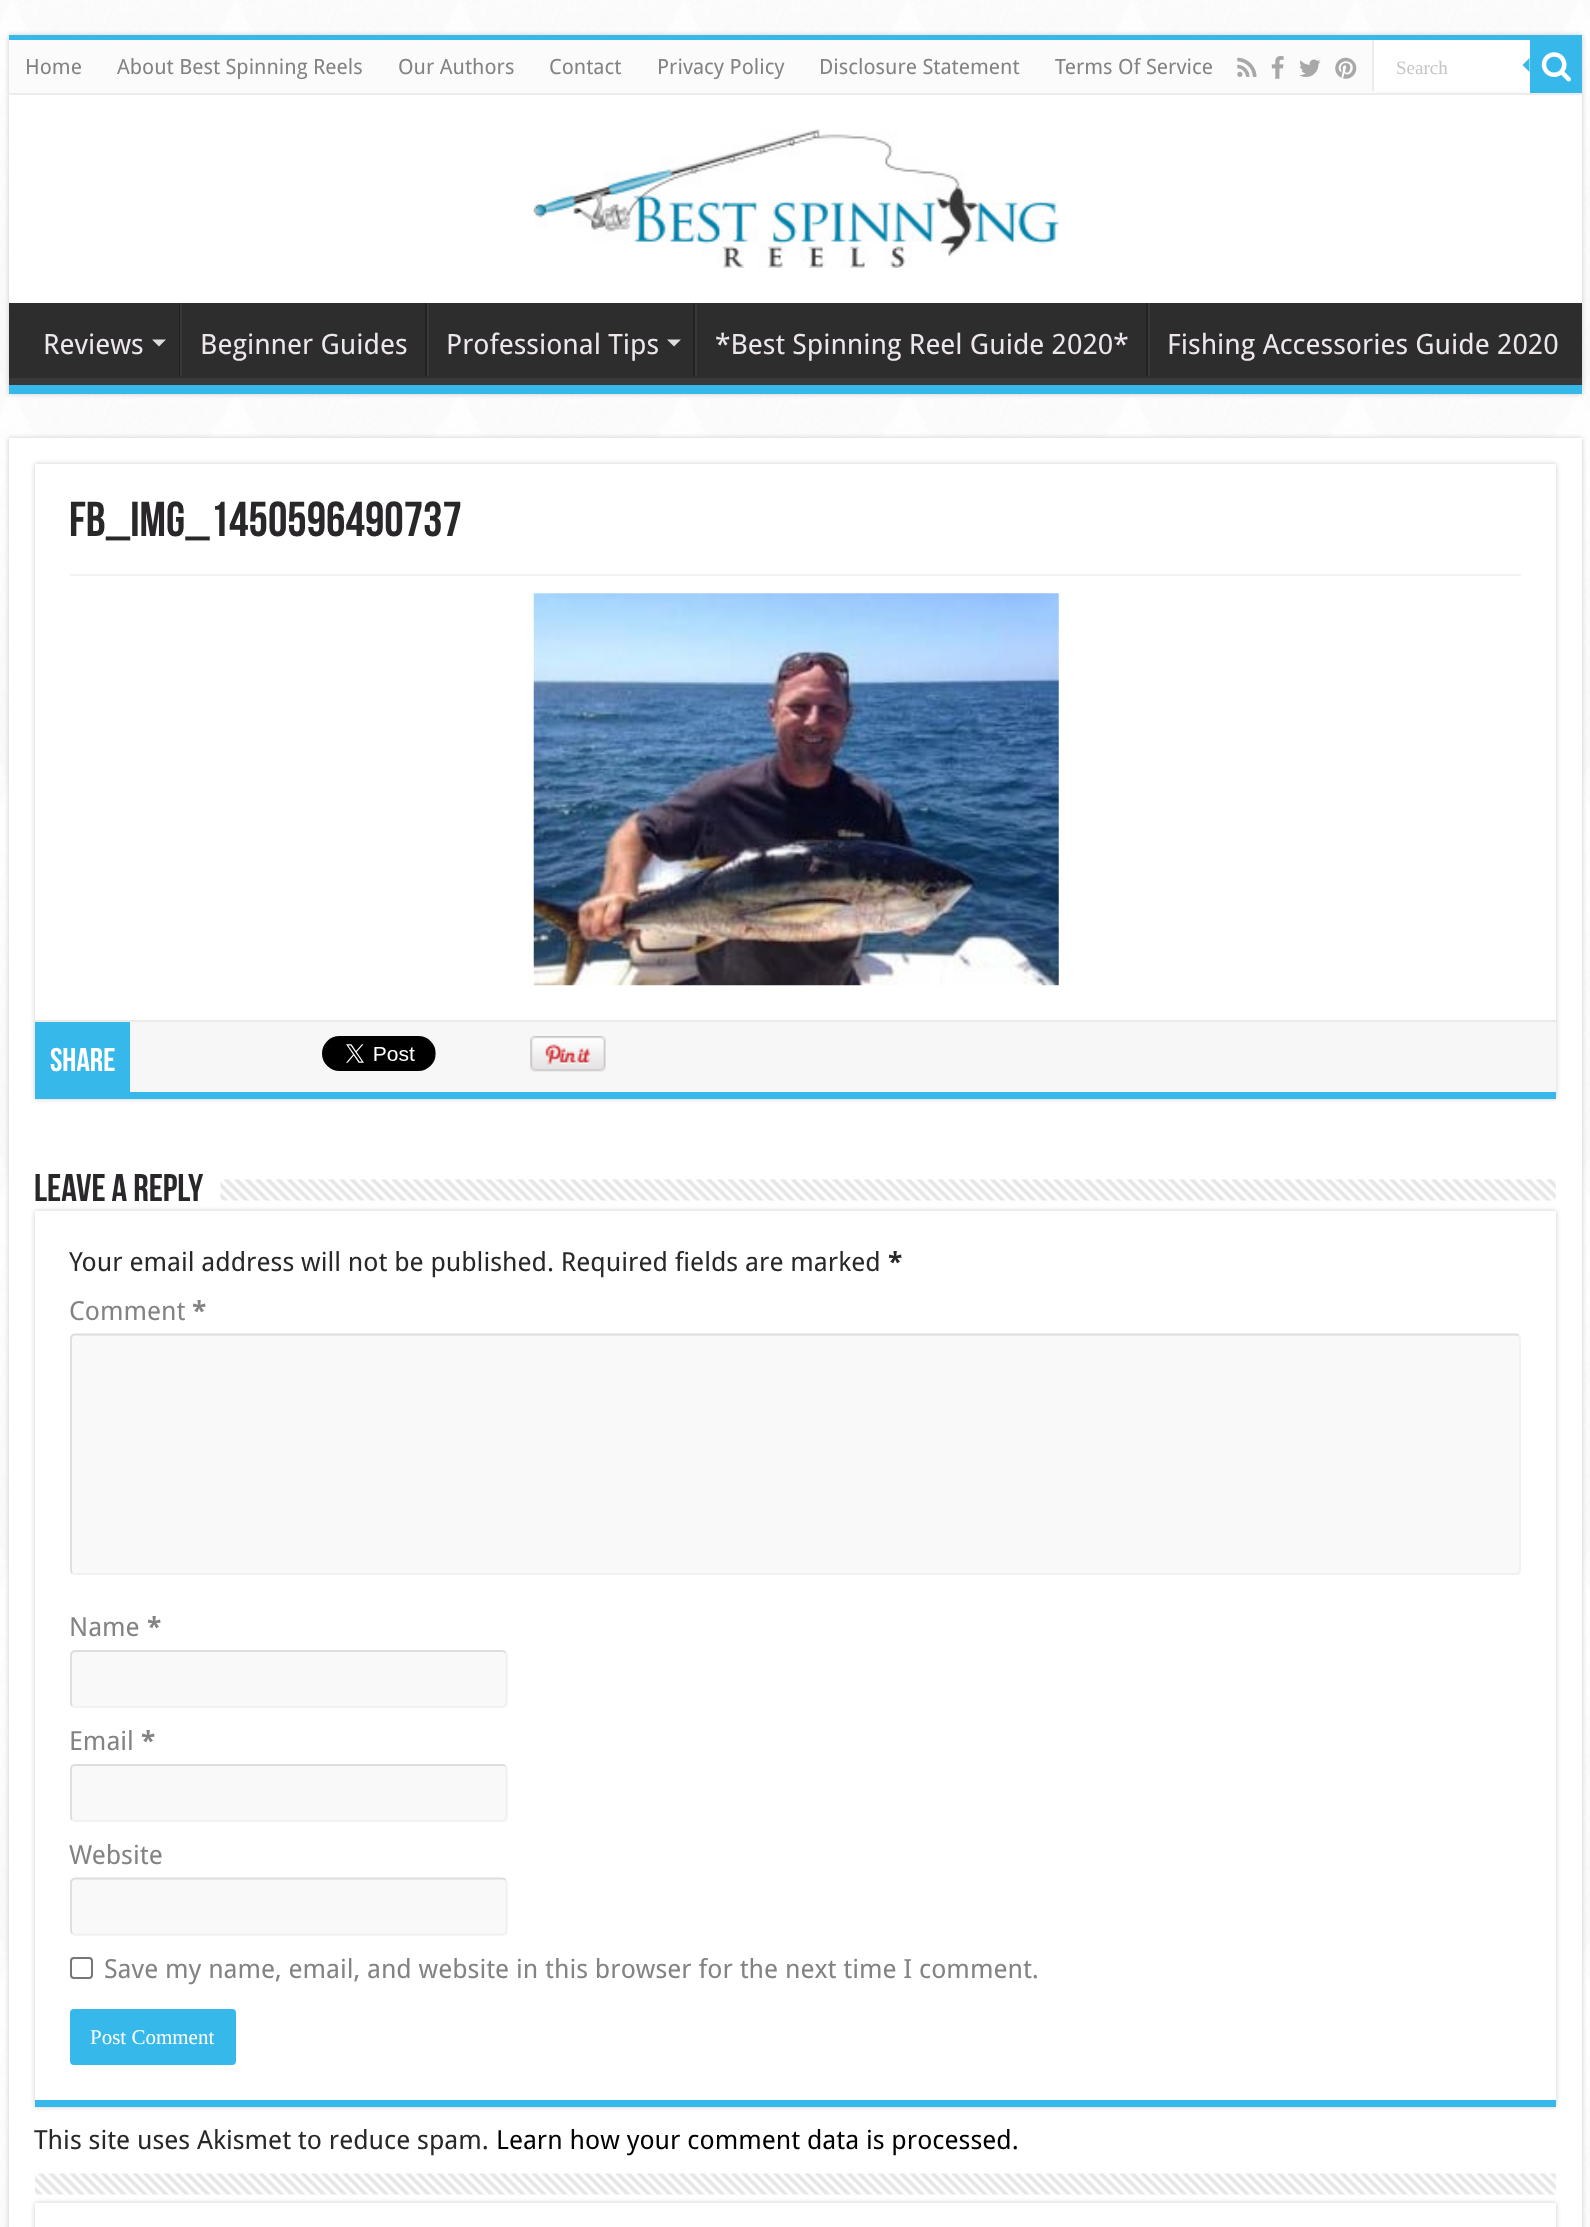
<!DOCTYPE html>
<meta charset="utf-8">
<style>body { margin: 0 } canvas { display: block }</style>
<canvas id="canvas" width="1590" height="2227"></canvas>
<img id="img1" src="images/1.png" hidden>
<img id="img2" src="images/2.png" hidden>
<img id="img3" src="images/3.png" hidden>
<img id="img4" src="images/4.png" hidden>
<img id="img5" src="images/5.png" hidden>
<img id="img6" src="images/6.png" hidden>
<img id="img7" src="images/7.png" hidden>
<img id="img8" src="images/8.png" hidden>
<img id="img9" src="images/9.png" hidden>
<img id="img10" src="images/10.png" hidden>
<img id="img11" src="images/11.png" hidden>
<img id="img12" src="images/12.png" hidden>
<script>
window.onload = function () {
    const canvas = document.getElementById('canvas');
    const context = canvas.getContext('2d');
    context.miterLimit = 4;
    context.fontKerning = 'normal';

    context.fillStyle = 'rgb(255, 255, 255)';
    context.fillRect(0, 0, 1590, 2227);
    context.drawImage(document.getElementById('img1'), 0, 0, 1590, 2227);
    context.fillStyle = 'rgb(202, 202, 202)';
    context.filter = 'blur(2.5px)';
    context.beginPath();
    context.rect(9, 35, 1573, 359);
    context.fill();
    context.filter = 'none';
    context.fillStyle = 'rgb(255, 255, 255)';
    context.fillRect(9, 95, 1573, 208);
    context.fillStyle = 'rgb(55, 184, 235)';
    context.fillRect(9, 35, 1573, 5);
    context.fillStyle = 'rgb(251, 251, 251)';
    context.fillRect(9, 40, 1521, 53);
    context.fillStyle = 'rgb(236, 236, 236)';
    context.fillRect(9, 93, 1573, 2);
    context.drawImage(document.getElementById('img2'), 1237, 57, 20, 20);
    context.drawImage(document.getElementById('img3'), 1271, 56, 13, 23);
    context.drawImage(document.getElementById('img4'), 1299, 59, 22, 18);
    context.drawImage(document.getElementById('img5'), 1335, 57, 22, 22);
    context.fillStyle = 'rgb(255, 255, 255)';
    context.fillRect(1374, 40, 156, 51);
    context.fillStyle = 'rgb(236, 236, 236)';
    context.fillRect(1372, 40, 2, 51);
    context.fillStyle = 'rgb(55, 184, 235)';
    context.fillRect(1530, 40, 52, 53);
    context.drawImage(document.getElementById('img6'), 1541, 52, 30, 30);
    context.beginPath();
    context.moveTo(1529.5, 58);
    context.lineTo(1529.5, 72);
    context.lineTo(1522.5, 65);
    context.closePath();
    context.fill();
    context.drawImage(document.getElementById('img7'), 533, 129, 526, 139);
    context.fillStyle = 'rgb(45, 45, 45)';
    context.fillRect(9, 303, 1573, 75);
    context.save();
    context.beginPath();
    context.rect(9, 303, 1573, 82);
    context.clip();
    context.fillStyle = 'rgb(57, 57, 57)';
    context.beginPath();
    context.moveTo(-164, 130);
    context.lineTo(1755, 130);
    context.lineTo(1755, 558);
    context.lineTo(-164, 558);
    context.closePath();
    context.moveTo(7, 292);
    context.lineTo(1580, 292);
    context.bezierCurveTo(1581, 292, 1582, 293, 1582, 294);
    context.lineTo(1582, 376);
    context.bezierCurveTo(1582, 377, 1581, 378, 1580, 378);
    context.lineTo(7, 378);
    context.bezierCurveTo(6, 378, 5, 377, 5, 376);
    context.lineTo(5, 294);
    context.bezierCurveTo(5, 293, 6, 292, 7, 292);
    context.closePath();
    context.fill('evenodd');
    context.restore();
    context.fillStyle = 'rgb(55, 184, 235)';
    context.fillRect(9, 385, 1573, 9);
    context.fillStyle = 'rgb(221, 221, 221)';
    context.beginPath();
    context.moveTo(152, 339.5);
    context.lineTo(166, 339.5);
    context.lineTo(159, 346.5);
    context.closePath();
    context.fill();
    context.fillStyle = 'rgb(34, 34, 34)';
    context.fillRect(179, 303, 1, 73);
    context.fillStyle = 'rgb(56, 56, 56)';
    context.fillRect(180, 303, 2, 73);
    context.fillStyle = 'rgb(34, 34, 34)';
    context.fillRect(425, 303, 2, 73);
    context.fillStyle = 'rgb(56, 56, 56)';
    context.fillRect(427, 303, 2, 73);
    context.fillStyle = 'rgb(221, 221, 221)';
    context.beginPath();
    context.moveTo(667, 339.5);
    context.lineTo(681, 339.5);
    context.lineTo(674, 346.5);
    context.closePath();
    context.fill();
    context.fillStyle = 'rgb(34, 34, 34)';
    context.fillRect(693, 303, 2, 73);
    context.fillStyle = 'rgb(56, 56, 56)';
    context.fillRect(695, 303, 2, 73);
    context.fillStyle = 'rgb(34, 34, 34)';
    context.fillRect(1146, 303, 2, 73);
    context.fillStyle = 'rgb(56, 56, 56)';
    context.fillRect(1148, 303, 2, 73);
    context.fillStyle = 'rgb(202, 202, 202)';
    context.filter = 'blur(2.5px)';
    context.beginPath();
    context.rect(9, 438, 1573, 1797);
    context.fill();
    context.filter = 'none';
    context.fillStyle = 'rgb(255, 255, 255)';
    context.fillRect(9, 438, 1573, 1789);
    context.fillStyle = 'rgb(202, 202, 202)';
    context.filter = 'blur(2.5px)';
    context.beginPath();
    context.rect(35, 464, 1521, 635);
    context.fill();
    context.filter = 'none';
    context.fillStyle = 'rgb(255, 255, 255)';
    context.fillRect(35, 464, 1521, 556);
    context.fillStyle = 'rgb(55, 184, 235)';
    context.fillRect(35, 1092, 1521, 7);
    context.fillStyle = 'rgb(242, 242, 242)';
    context.fillRect(70, 574, 1451, 2);
    context.drawImage(document.getElementById('img8'), 533, 593, 526, 393);
    context.fillStyle = 'rgb(247, 247, 247)';
    context.fillRect(130, 1022, 1426, 70);
    context.fillStyle = 'rgb(234, 234, 234)';
    context.fillRect(35, 1020, 1521, 2);
    context.fillStyle = 'rgb(55, 184, 235)';
    context.fillRect(35, 1022, 95, 70);
    context.drawImage(document.getElementById('img9'), 322, 1036, 114, 35);
    context.drawImage(document.getElementById('img10'), 530, 1036, 76, 36);
    context.drawImage(document.getElementById('img11'), 220, 1179, 1336, 22);
    context.fillStyle = 'rgb(202, 202, 202)';
    context.filter = 'blur(2.5px)';
    context.beginPath();
    context.rect(35, 1211, 1521, 896);
    context.fill();
    context.filter = 'none';
    context.fillStyle = 'rgb(255, 255, 255)';
    context.fillRect(35, 1211, 1521, 889);
    context.fillStyle = 'rgb(55, 184, 235)';
    context.fillRect(35, 2100, 1521, 7);
    context.fillStyle = 'rgb(249, 249, 249)';
    context.beginPath();
    context.roundRect(70, 1334, 1451, 241, 5);
    context.fill();
    context.beginPath();
    context.moveTo(1518.5, 1335.5);
    context.bezierCurveTo(1519.5, 1336.5, 1520, 1337.5, 1520, 1339);
    context.lineTo(1520, 1570);
    context.bezierCurveTo(1520, 1571, 1519.5, 1572, 1518.5, 1573);
    context.bezierCurveTo(1518, 1573.5, 1516.5, 1574, 1515.5, 1574);
    context.lineTo(75, 1574);
    context.bezierCurveTo(74, 1574, 73, 1573.5, 72, 1573);
    context.strokeStyle = 'rgb(241, 241, 241)';
    context.lineWidth = 1.8;
    context.stroke();
    context.beginPath();
    context.moveTo(72, 1573);
    context.bezierCurveTo(71.5, 1572, 71, 1571, 71, 1570);
    context.lineTo(71, 1339);
    context.bezierCurveTo(71, 1337.5, 71.5, 1336.5, 72, 1335.5);
    context.bezierCurveTo(73, 1335, 74, 1334.5, 75, 1334.5);
    context.lineTo(1515.5, 1334.5);
    context.bezierCurveTo(1516.5, 1334.5, 1518, 1335, 1518.5, 1335.5);
    context.strokeStyle = 'rgb(221, 221, 221)';
    context.stroke();
    context.beginPath();
    context.roundRect(70, 1650, 438, 58, 5);
    context.fill();
    context.beginPath();
    context.moveTo(505.5, 1652.5);
    context.bezierCurveTo(506, 1653, 506.5, 1654.5, 506.5, 1655.5);
    context.lineTo(506.5, 1703);
    context.bezierCurveTo(506.5, 1704, 506, 1705, 505.5, 1706);
    context.bezierCurveTo(504.5, 1706.5, 503.5, 1707, 502, 1707);
    context.lineTo(75, 1707);
    context.bezierCurveTo(74, 1707, 73, 1706.5, 72, 1706);
    context.strokeStyle = 'rgb(241, 241, 241)';
    context.stroke();
    context.beginPath();
    context.moveTo(72, 1706);
    context.bezierCurveTo(71.5, 1705, 71, 1704, 71, 1703);
    context.lineTo(71, 1655.5);
    context.bezierCurveTo(71, 1654.5, 71.5, 1653, 72, 1652.5);
    context.bezierCurveTo(73, 1651.5, 74, 1651, 75, 1651);
    context.lineTo(502, 1651);
    context.bezierCurveTo(503.5, 1651, 504.5, 1651.5, 505.5, 1652.5);
    context.strokeStyle = 'rgb(221, 221, 221)';
    context.stroke();
    context.beginPath();
    context.roundRect(70, 1764, 438, 58, 5);
    context.fill();
    context.beginPath();
    context.moveTo(505.5, 1766);
    context.bezierCurveTo(506, 1767, 506.5, 1768, 506.5, 1769);
    context.lineTo(506.5, 1816.5);
    context.bezierCurveTo(506.5, 1817.5, 506, 1819, 505.5, 1819.5);
    context.bezierCurveTo(504.5, 1820.5, 503.5, 1821, 502, 1821);
    context.lineTo(75, 1821);
    context.bezierCurveTo(74, 1821, 73, 1820.5, 72, 1819.5);
    context.strokeStyle = 'rgb(241, 241, 241)';
    context.stroke();
    context.beginPath();
    context.moveTo(72, 1819.5);
    context.bezierCurveTo(71.5, 1819, 71, 1817.5, 71, 1816.5);
    context.lineTo(71, 1769);
    context.bezierCurveTo(71, 1768, 71.5, 1767, 72, 1766);
    context.bezierCurveTo(73, 1765.5, 74, 1765, 75, 1765);
    context.lineTo(502, 1765);
    context.bezierCurveTo(503.5, 1765, 504.5, 1765.5, 505.5, 1766);
    context.strokeStyle = 'rgb(221, 221, 221)';
    context.stroke();
    context.beginPath();
    context.roundRect(70, 1878, 438, 58, 5);
    context.fill();
    context.beginPath();
    context.moveTo(505.5, 1880);
    context.bezierCurveTo(506, 1880.5, 506.5, 1882, 506.5, 1883);
    context.lineTo(506.5, 1930);
    context.bezierCurveTo(506.5, 1931.5, 506, 1932.5, 505.5, 1933.5);
    context.bezierCurveTo(504.5, 1934, 503.5, 1934.5, 502, 1934.5);
    context.lineTo(75, 1934.5);
    context.bezierCurveTo(74, 1934.5, 73, 1934, 72, 1933.5);
    context.strokeStyle = 'rgb(241, 241, 241)';
    context.stroke();
    context.beginPath();
    context.moveTo(72, 1933.5);
    context.bezierCurveTo(71.5, 1932.5, 71, 1931.5, 71, 1930);
    context.lineTo(71, 1883);
    context.bezierCurveTo(71, 1882, 71.5, 1880.5, 72, 1880);
    context.bezierCurveTo(73, 1879, 74, 1878.5, 75, 1878.5);
    context.lineTo(502, 1878.5);
    context.bezierCurveTo(503.5, 1878.5, 504.5, 1879, 505.5, 1880);
    context.strokeStyle = 'rgb(221, 221, 221)';
    context.stroke();
    context.beginPath();
    context.roundRect(71, 1958, 21, 20, 3);
    context.strokeStyle = 'rgb(118, 118, 118)';
    context.lineWidth = 2;
    context.stroke();
    context.fillStyle = 'rgb(55, 184, 235)';
    context.beginPath();
    context.roundRect(70, 2009, 166, 56, 4);
    context.fill();
    context.fillStyle = 'rgb(202, 202, 202)';
    context.filter = 'blur(2.5px)';
    context.beginPath();
    context.rect(35, 2203, 1521, 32);
    context.fill();
    context.filter = 'none';
    context.drawImage(document.getElementById('img12'), 35, 2173, 1521, 22);
    context.fillStyle = 'rgb(255, 255, 255)';
    context.fillRect(35, 2203, 1521, 24);
    context.font = '21px Droid Sans';
    context.fillStyle = 'rgb(131, 131, 131)';
    context.fillText('Home', 25, 74);
    context.fillText('About Best Spinning Reels', 117, 74);
    context.fillText('Our Authors', 398, 74);
    context.fillText('Contact', 549, 74);
    context.fillText('Privacy Policy', 657, 74);
    context.fillText('Disclosure Statement', 819, 74);
    context.fillText('Terms Of Service', 1055, 74);
    context.font = '19px Liberation Serif';
    context.fillStyle = 'rgb(197, 197, 197)';
    context.fillText('Search', 1396, 74);
    context.font = '28px Droid Sans';
    context.fillStyle = 'rgb(237, 230, 237)';
    context.fillText('Reviews', 43, 354);
    context.fillText('Beginner Guides', 200, 354);
    context.fillText('Professional Tips', 446, 354);
    context.fillText('*Best Spinning Reel Guide 2020*', 715, 354);
    context.fillText('Fishing Accessories Guide 2020', 1167, 354);
    context.font = 'bold 49px Bebas Neue';
    context.fillStyle = 'rgb(41, 39, 41)';
    context.fillText('FB_IMG_1450596490737', 69, 536);
    context.font = 'bold 33px Bebas Neue';
    context.fillStyle = 'rgb(255, 255, 255)';
    context.fillText('Share', 50, 1071);
    context.font = 'bold 38.5px Bebas Neue';
    context.fillStyle = 'rgb(41, 39, 41)';
    context.fillText('Leave a Reply', 34, 1201);
    context.font = '26.25px Droid Sans';
    context.fillText('Your email address will not be published. Required fields are marked', 69, 1271);
    context.font = 'bold 26.25px Droid Sans';
    context.fillText('*', 888, 1271);
    context.font = '26.25px Droid Sans';
    context.fillStyle = 'rgb(131, 131, 131)';
    context.fillText('Comment', 69, 1320);
    context.font = 'bold 26.25px Droid Sans';
    context.fillText('*', 192, 1320);
    context.font = '26.25px Droid Sans';
    context.fillText('Name', 69, 1636);
    context.font = 'bold 26.25px Droid Sans';
    context.fillText('*', 147, 1636);
    context.font = '26.25px Droid Sans';
    context.fillText('Email', 69, 1750);
    context.font = 'bold 26.25px Droid Sans';
    context.fillText('*', 141, 1750);
    context.font = '26.25px Droid Sans';
    context.fillText('Website', 69, 1864);
    context.fillText('Save my name, email, and website in this browser for the next time I comment.', 104, 1978);
    context.font = '21px Liberation Serif';
    context.fillStyle = 'rgb(255, 255, 255)';
    context.fillText('Post Comment', 90, 2044);
    context.font = '26.25px Droid Sans';
    context.fillStyle = 'rgb(41, 39, 41)';
    context.fillText('This site uses Akismet to reduce spam.', 34, 2149);
    context.fillStyle = 'rgb(0, 0, 0)';
    context.fillText('Learn how your comment data is processed.', 496, 2149);
};
</script>
